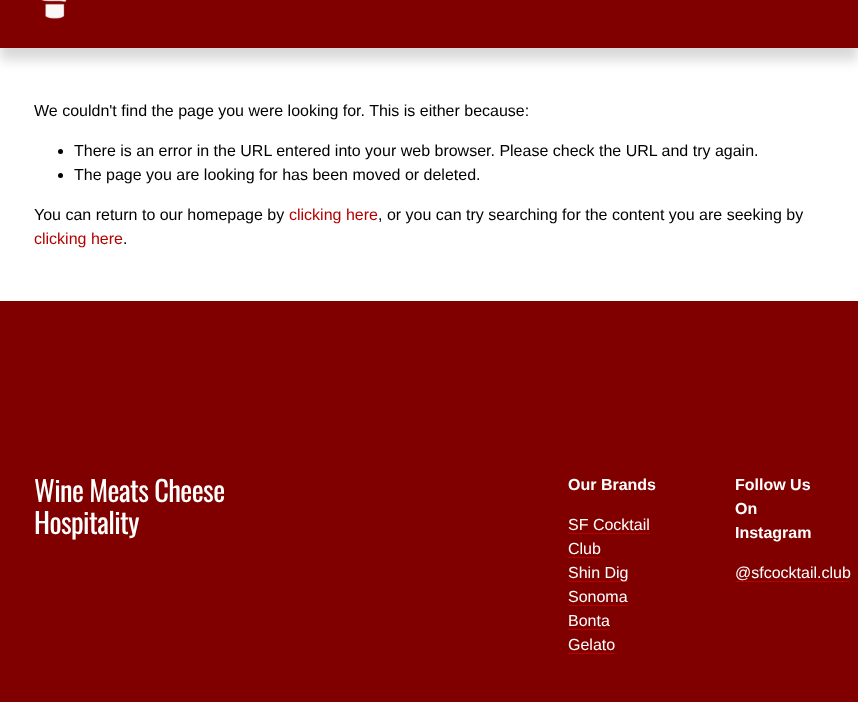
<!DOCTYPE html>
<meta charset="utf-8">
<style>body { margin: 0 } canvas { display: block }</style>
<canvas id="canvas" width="858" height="702"></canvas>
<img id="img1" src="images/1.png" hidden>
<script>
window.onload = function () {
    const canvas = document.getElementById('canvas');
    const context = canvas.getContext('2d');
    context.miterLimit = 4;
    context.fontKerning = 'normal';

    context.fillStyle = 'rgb(255, 255, 255)';
    context.fillRect(0, 0, 858, 702);
    context.fillStyle = 'rgb(217, 217, 217)';
    context.filter = 'blur(6px)';
    context.beginPath();
    context.rect(0, -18, 858, 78);
    context.fill();
    context.filter = 'none';
    context.fillStyle = 'rgb(128, 0, 0)';
    context.fillRect(0, 0, 858, 48);
    context.drawImage(document.getElementById('img1'), 41, 0, 26, 19);
    context.fillStyle = 'rgb(0, 0, 0)';
    context.beginPath();
    context.arc(60.5, 151.5, 2.5, 0, 2 * Math.PI);
    context.fill();
    context.beginPath();
    context.arc(60.5, 175.5, 2.5, 0, 2 * Math.PI);
    context.fill();
    context.fillStyle = 'rgb(128, 0, 0)';
    context.fillRect(0, 301, 858, 401);
    context.fillStyle = 'rgb(182, 0, 0)';
    context.fillRect(568, 533, 82, 1);
    context.fillRect(568, 557, 33, 1);
    context.fillRect(568, 581, 60, 1);
    context.fillRect(568, 605, 60, 1);
    context.fillRect(568, 629, 42, 1);
    context.fillRect(568, 653, 47, 1);
    context.fillRect(735, 581, 115, 1);
    context.font = '16px Arimo';
    context.fillStyle = 'rgb(0, 0, 0)';
    context.fillText('We couldn\'t find the page you were looking for. This is either because:', 34, 116);
    context.fillText('There is an error in the URL entered into your web browser. Please check the URL and try again.', 74, 156);
    context.fillText('The page you are looking for has been moved or deleted.', 74, 180);
    context.fillText('You can return to our homepage by', 34, 220);
    context.fillStyle = 'rgb(182, 0, 0)';
    context.fillText('clicking here', 289, 220);
    context.fillStyle = 'rgb(0, 0, 0)';
    context.fillText(', or you can try searching for the content you are seeking by', 378, 220);
    context.fillStyle = 'rgb(182, 0, 0)';
    context.fillText('clicking here', 34, 244);
    context.fillStyle = 'rgb(0, 0, 0)';
    context.fillText('.', 123, 244);
    context.letterSpacing = '-0.6px';
    context.font = '28.5px Oswald';
    context.fillStyle = 'rgb(255, 255, 255)';
    context.fillText('Wine Meats Cheese', 34, 502);
    context.fillText('Hospitality', 34, 534);
    context.letterSpacing = '0px';
    context.font = 'bold 16px Arimo';
    context.fillText('Our Brands', 568, 490);
    context.font = '16px Arimo';
    context.fillText('SF Cocktail', 568, 530);
    context.fillText('Club', 568, 554);
    context.fillText('Shin Dig', 568, 578);
    context.fillText('Sonoma', 568, 602);
    context.fillText('Bonta', 568, 626);
    context.fillText('Gelato', 568, 650);
    context.font = 'bold 16px Arimo';
    context.fillText('Follow Us', 735, 490);
    context.fillText('On', 735, 514);
    context.fillText('Instagram', 735, 538);
    context.font = '16px Arimo';
    context.fillText('@sfcocktail.club', 735, 578);
};
</script>
